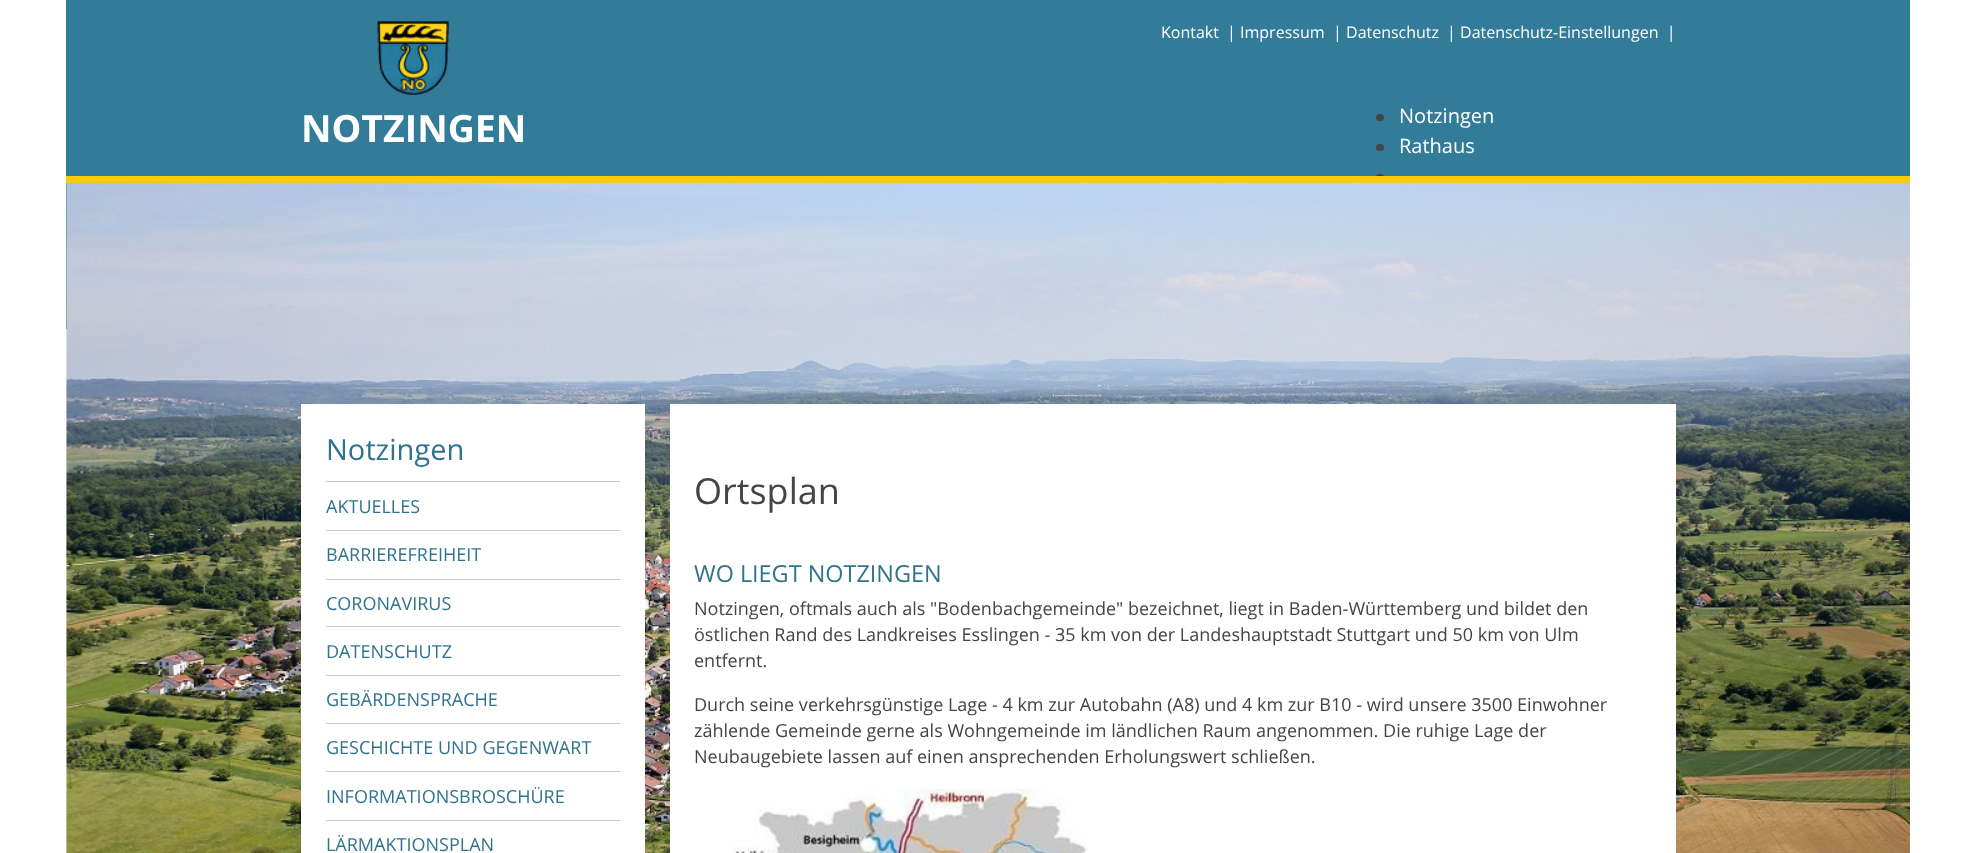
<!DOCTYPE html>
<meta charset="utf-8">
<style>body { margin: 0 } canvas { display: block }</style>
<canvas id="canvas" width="1976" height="853"></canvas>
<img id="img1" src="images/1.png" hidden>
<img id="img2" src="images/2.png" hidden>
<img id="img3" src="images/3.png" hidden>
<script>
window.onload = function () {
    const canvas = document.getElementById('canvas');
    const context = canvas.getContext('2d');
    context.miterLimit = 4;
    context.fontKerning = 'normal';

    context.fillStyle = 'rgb(255, 255, 255)';
    context.fillRect(0, 0, 1976, 853);
    context.fillStyle = 'rgb(51, 124, 153)';
    context.fillRect(66, 0, 1844, 329);
    context.drawImage(document.getElementById('img1'), 377, 21, 72, 74);
    context.fillStyle = 'rgb(68, 68, 68)';
    context.beginPath();
    context.roundRect(1376, 114, 8, 7, 3.5);
    context.fill();
    context.beginPath();
    context.roundRect(1376, 144, 8, 7, 3.5);
    context.fill();
    context.beginPath();
    context.roundRect(1376, 174, 8, 7, 3.5);
    context.fill();
    context.fillStyle = 'rgb(255, 204, 0)';
    context.fillRect(66, 176, 1844, 7);
    context.drawImage(document.getElementById('img2'), 66, 182, 1844, 671);
    context.fillStyle = 'rgb(255, 255, 255)';
    context.fillRect(301, 404, 344, 449);
    context.fillStyle = 'rgb(204, 204, 204)';
    context.fillRect(326, 481, 294, 1);
    context.fillRect(326, 530, 294, 1);
    context.fillRect(326, 579, 294, 1);
    context.fillRect(326, 626, 294, 1);
    context.fillRect(326, 675, 294, 1);
    context.fillRect(326, 723, 294, 1);
    context.fillRect(326, 771, 294, 1);
    context.fillRect(326, 820, 294, 1);
    context.fillStyle = 'rgb(255, 255, 255)';
    context.fillRect(670, 404, 1006, 449);
    context.drawImage(document.getElementById('img3'), 733, 788, 355, 65);
    context.font = '16px Open Sans';
    context.fillText('Kontakt', 1161, 38);
    context.fillText('| Impressum', 1227, 38);
    context.fillText('| Datenschutz', 1333, 38);
    context.fillText('| Datenschutz-Einstellungen  |', 1447, 38);
    context.font = 'bold 37.5px Open Sans';
    context.fillText('NOTZINGEN', 301, 142);
    context.font = '20px Open Sans';
    context.fillText('Notzingen', 1399, 123);
    context.fillText('Rathaus', 1399, 153);
    context.font = '29px Open Sans';
    context.fillStyle = 'rgb(47, 115, 142)';
    context.fillText('Notzingen', 326, 460);
    context.font = '18px Open Sans';
    context.fillText('AKTUELLES', 326, 513);
    context.fillText('BARRIEREFREIHEIT', 326, 561);
    context.fillText('CORONAVIRUS', 326, 610);
    context.fillText('DATENSCHUTZ', 326, 658);
    context.fillText('GEBÄRDENSPRACHE', 326, 706);
    context.fillText('GESCHICHTE UND GEGENWART', 326, 754);
    context.fillText('INFORMATIONSBROSCHÜRE', 326, 803);
    context.fillText('LÄRMAKTIONSPLAN', 326, 851);
    context.font = '36px Open Sans';
    context.fillStyle = 'rgb(68, 68, 68)';
    context.fillText('Ortsplan', 694, 504);
    context.font = '23.4px Open Sans';
    context.fillStyle = 'rgb(47, 115, 142)';
    context.fillText('WO LIEGT NOTZINGEN', 694, 582);
    context.font = '18px Open Sans';
    context.fillStyle = 'rgb(68, 68, 68)';
    context.fillText('Notzingen, oftmals auch als "Bodenbachgemeinde" bezeichnet, liegt in Baden-Württemberg und bildet den', 694, 615);
    context.fillText('östlichen Rand des Landkreises Esslingen - 35 km von der Landeshauptstadt Stuttgart und 50 km von Ulm', 694, 641);
    context.fillText('entfernt.', 694, 667);
    context.fillText('Durch seine verkehrsgünstige Lage - 4 km zur Autobahn (A8) und 4 km zur B10 - wird unsere 3500 Einwohner', 694, 711);
    context.fillText('zählende Gemeinde gerne als Wohngemeinde im ländlichen Raum angenommen. Die ruhige Lage der', 694, 737);
    context.fillText('Neubaugebiete lassen auf einen ansprechenden Erholungswert schließen.', 694, 763);
};
</script>
